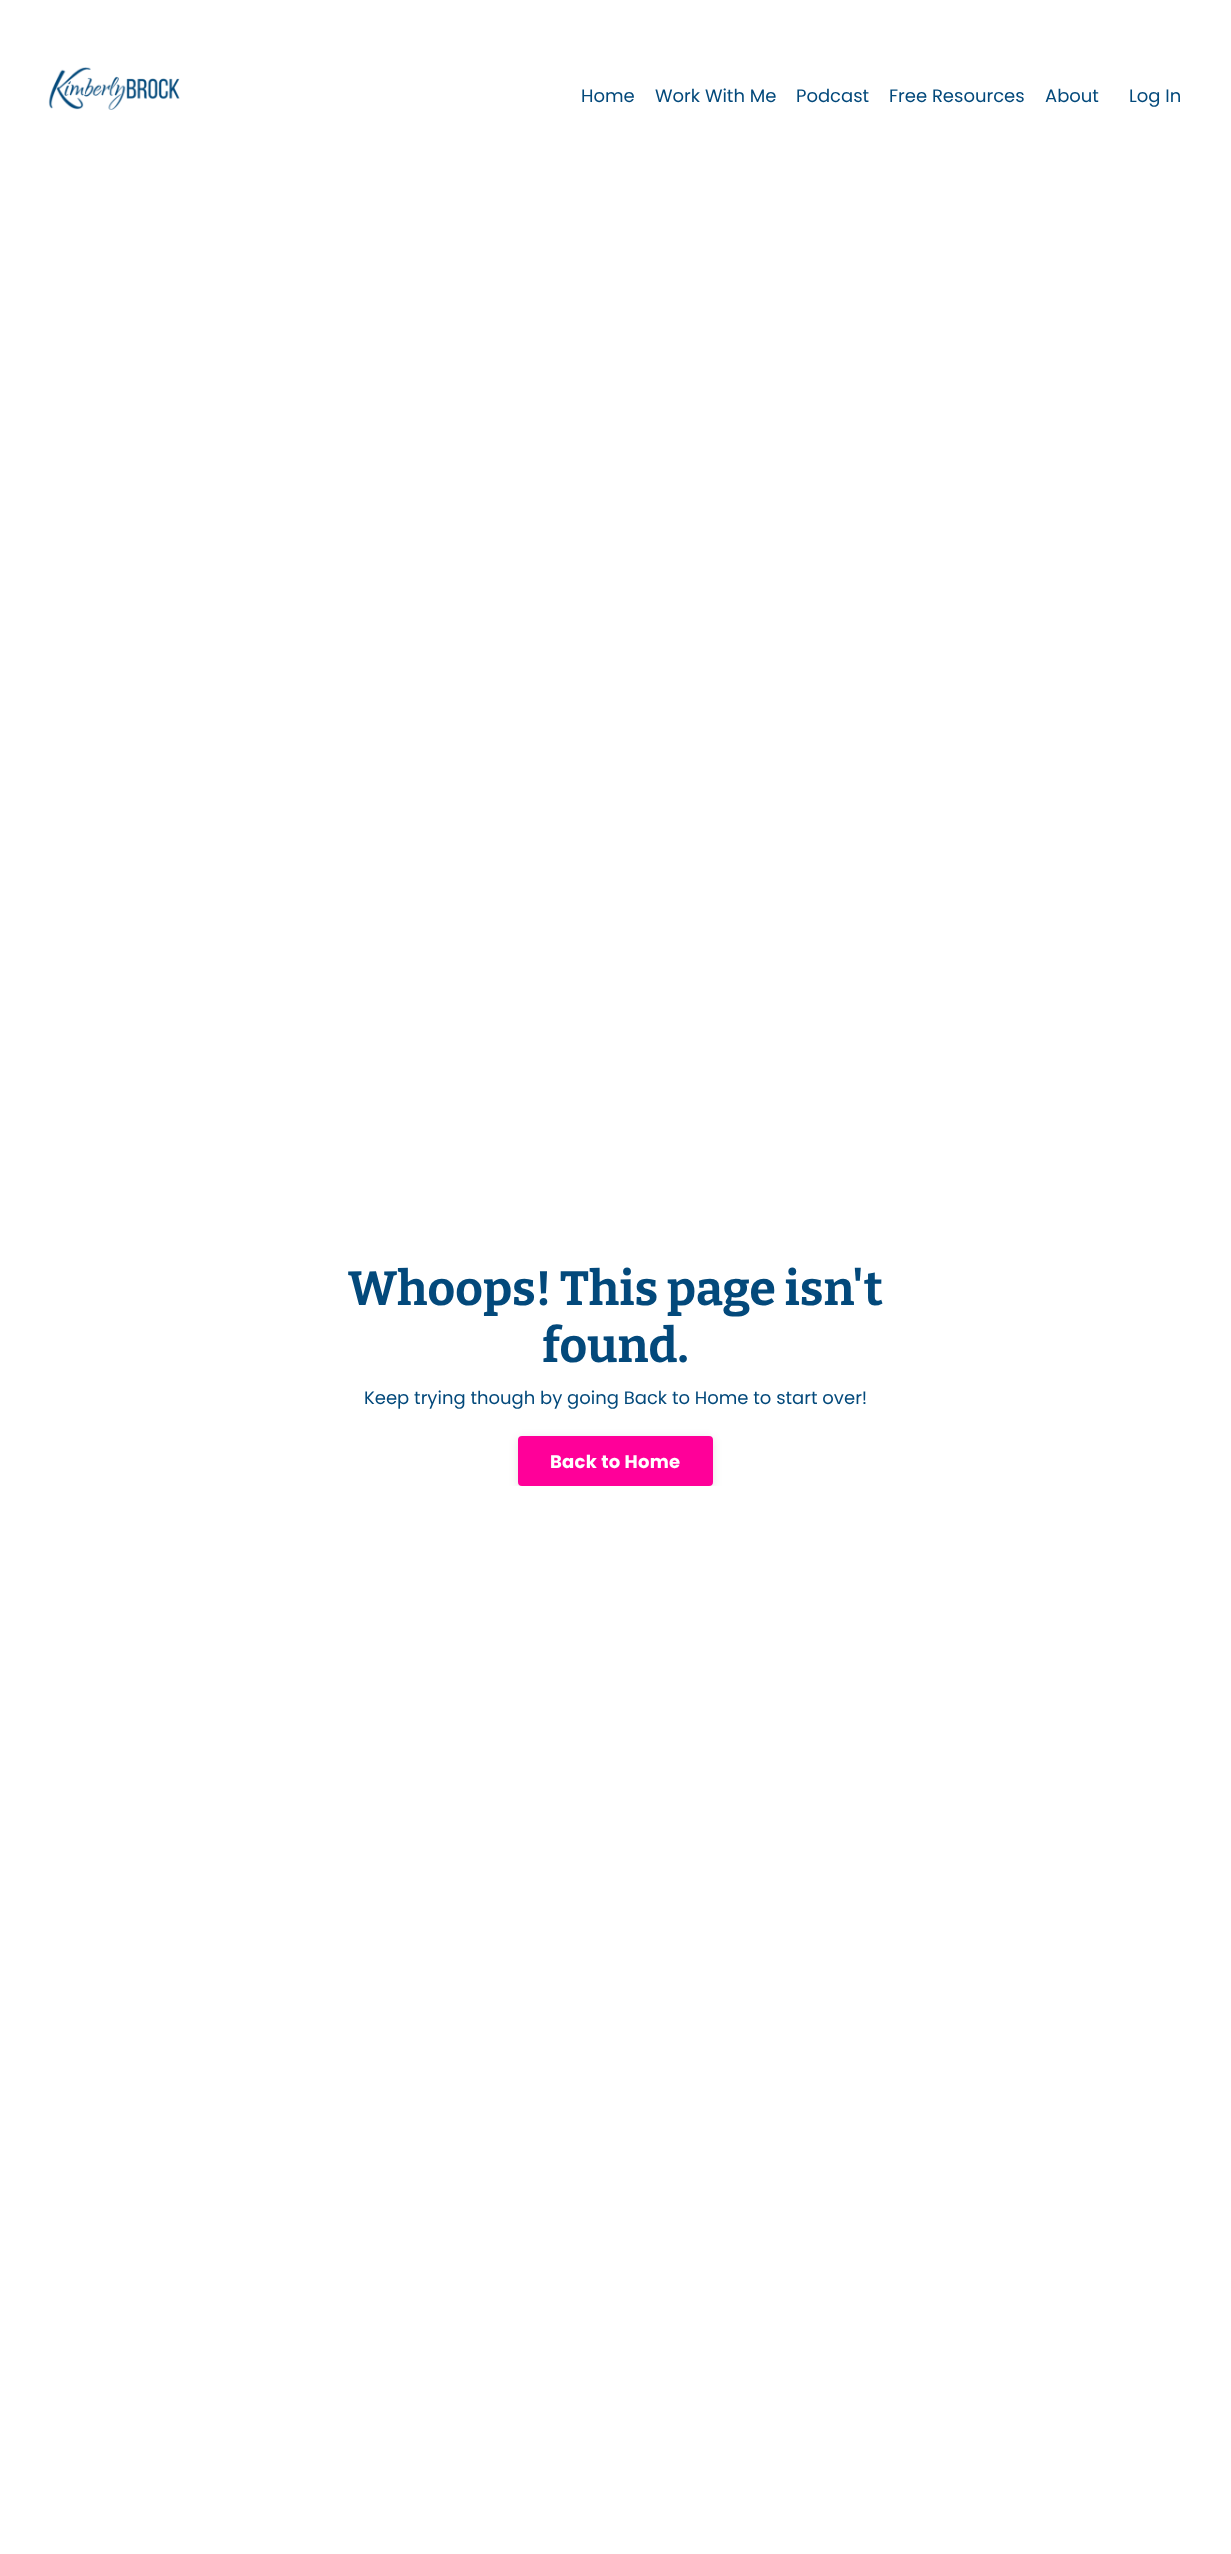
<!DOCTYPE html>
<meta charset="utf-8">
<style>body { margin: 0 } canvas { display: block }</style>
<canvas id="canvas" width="1231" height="2554"></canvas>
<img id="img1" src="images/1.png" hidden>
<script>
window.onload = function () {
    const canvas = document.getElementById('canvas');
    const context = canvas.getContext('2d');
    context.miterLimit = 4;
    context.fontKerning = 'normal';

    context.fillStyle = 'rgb(255, 255, 255)';
    context.fillRect(0, 0, 1231, 2554);
    context.drawImage(document.getElementById('img1'), 48, 67, 132, 43);
    context.save();
    context.beginPath();
    context.roundRect(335, 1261, 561, 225, 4);
    context.clip();
    context.fillStyle = 'rgba(0, 0, 0, 0.1)';
    context.filter = 'blur(5px)';
    context.beginPath();
    context.roundRect(518, 1438, 195, 50, 4);
    context.fill();
    context.filter = 'none';
    context.restore();
    context.fillStyle = 'rgb(255, 0, 153)';
    context.beginPath();
    context.roundRect(519, 1437, 193, 48, 3);
    context.fill();
    context.strokeStyle = 'rgb(255, 0, 153)';
    context.lineWidth = 2;
    context.stroke();
    context.font = '18px Poppins';
    context.fillStyle = 'rgb(3, 73, 123)';
    context.fillText('Home', 581, 102);
    context.fillText('Work With Me', 655, 102);
    context.fillText('Podcast', 796, 102);
    context.fillText('Free Resources', 889, 102);
    context.fillText('About', 1045, 102);
    context.fillText('Log In', 1129, 102);
    context.font = 'bold 48px Bitter';
    context.fillText('Whoops! This page isn\'t', 348, 1305);
    context.fillText('found.', 542, 1362);
    context.font = '18px Poppins';
    context.fillText('Keep trying though by going Back to Home to start over!', 364, 1404);
    context.letterSpacing = '0.25px';
    context.font = 'bold 18px Poppins';
    context.fillStyle = 'rgb(255, 255, 255)';
    context.fillText('Back to Home', 550, 1468);
};
</script>
